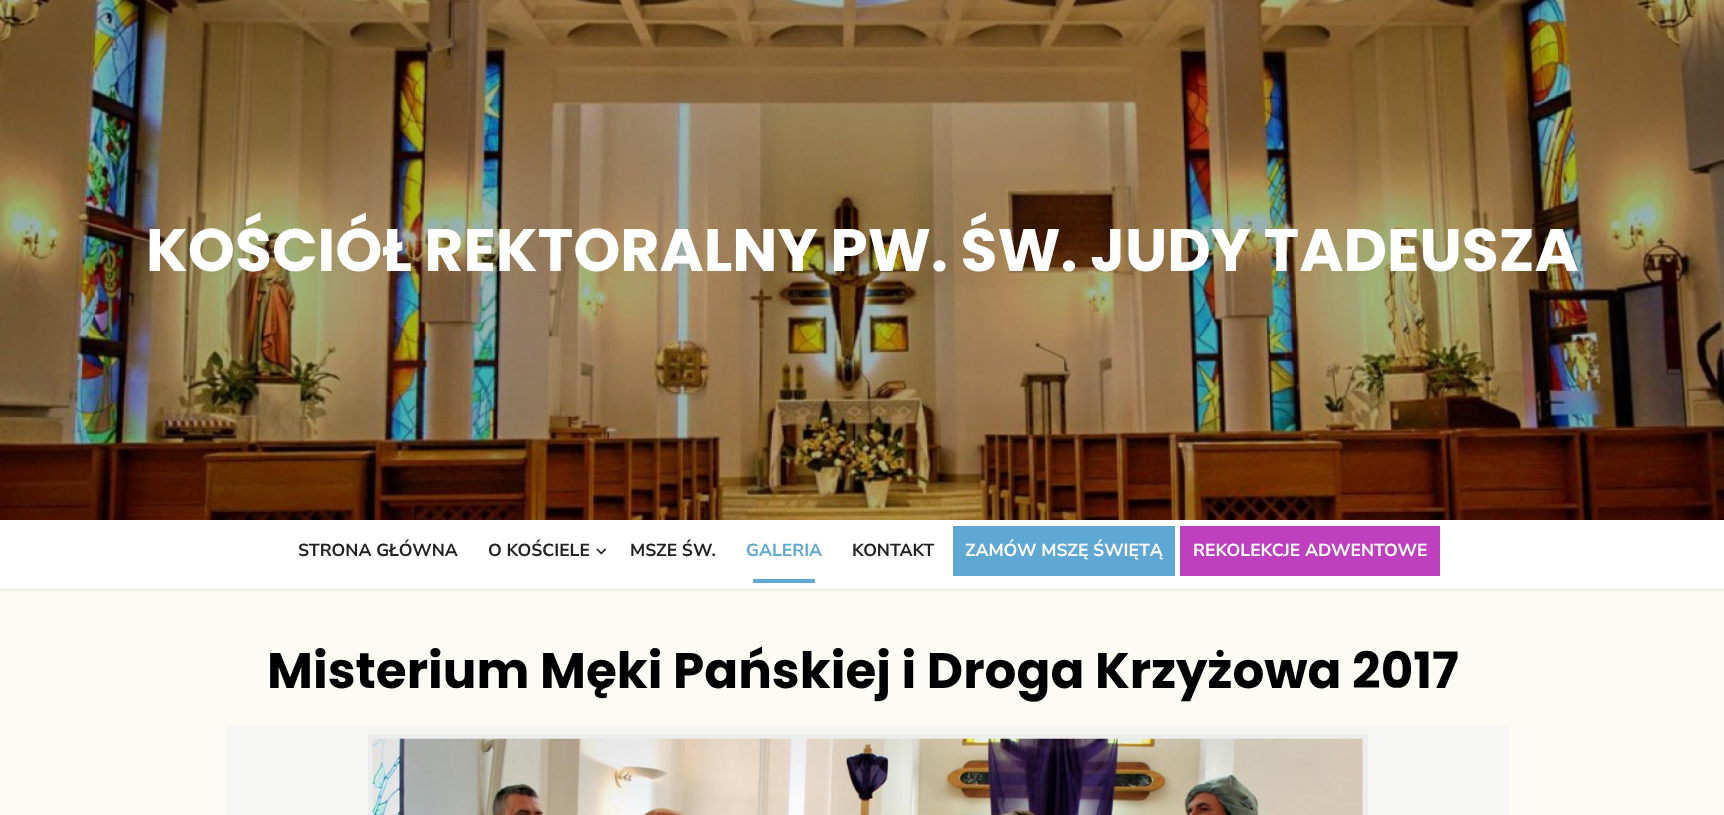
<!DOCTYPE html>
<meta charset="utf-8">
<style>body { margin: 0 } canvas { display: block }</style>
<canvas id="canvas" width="1724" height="815"></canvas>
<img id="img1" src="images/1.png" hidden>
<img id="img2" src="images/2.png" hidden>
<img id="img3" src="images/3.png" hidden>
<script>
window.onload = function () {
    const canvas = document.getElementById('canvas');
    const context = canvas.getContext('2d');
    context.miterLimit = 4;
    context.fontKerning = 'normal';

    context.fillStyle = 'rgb(252, 251, 244)';
    context.fillRect(0, 0, 1724, 815);
    context.fillStyle = 'rgba(0, 0, 0, 0.1)';
    context.filter = 'blur(1px)';
    context.beginPath();
    context.rect(0, 521, 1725, 69);
    context.fill();
    context.filter = 'none';
    context.drawImage(document.getElementById('img1'), 0, 0, 1724, 520);
    context.fillStyle = 'rgb(255, 255, 255)';
    context.fillRect(0, 520, 1724, 69);
    context.drawImage(document.getElementById('img2'), 596, 548, 11, 7);
    context.fillStyle = 'rgb(95, 168, 211)';
    context.fillRect(753, 579, 62, 4);
    context.fillRect(953, 526, 222, 50);
    context.fillStyle = 'rgb(191, 64, 191)';
    context.fillRect(1180, 526, 260, 50);
    context.fillStyle = 'rgb(246, 246, 245)';
    context.fillRect(226, 726, 1283, 89);
    context.fillStyle = 'rgb(237, 237, 237)';
    context.fillRect(368, 734, 1000, 81);
    context.drawImage(document.getElementById('img3'), 372, 738, 991, 77);
    context.font = 'bold 60px Poppins';
    context.fillStyle = 'rgb(255, 255, 255)';
    context.fillText('KOŚCIÓŁ REKTORALNY PW. ŚW. JUDY TADEUSZA', 146, 271);
    context.font = 'bold 17.5px Nunito Sans';
    context.fillStyle = 'rgb(34, 34, 34)';
    context.fillText('STRONA GŁÓWNA', 298, 556);
    context.fillText('O KOŚCIELE', 488, 556);
    context.fillText('MSZE ŚW.', 630, 556);
    context.fillStyle = 'rgb(95, 168, 211)';
    context.fillText('GALERIA', 746, 556);
    context.fillStyle = 'rgb(34, 34, 34)';
    context.fillText('KONTAKT', 852, 556);
    context.fillStyle = 'rgb(255, 255, 255)';
    context.fillText('ZAMÓW MSZĘ ŚWIĘTĄ', 965, 556);
    context.fillText('REKOLEKCJE ADWENTOWE', 1193, 556);
    context.font = 'bold 50px Poppins';
    context.fillStyle = 'rgb(0, 0, 0)';
    context.fillText('Misterium Męki Pańskiej i Droga Krzyżowa 2017', 267, 688);
};
</script>
